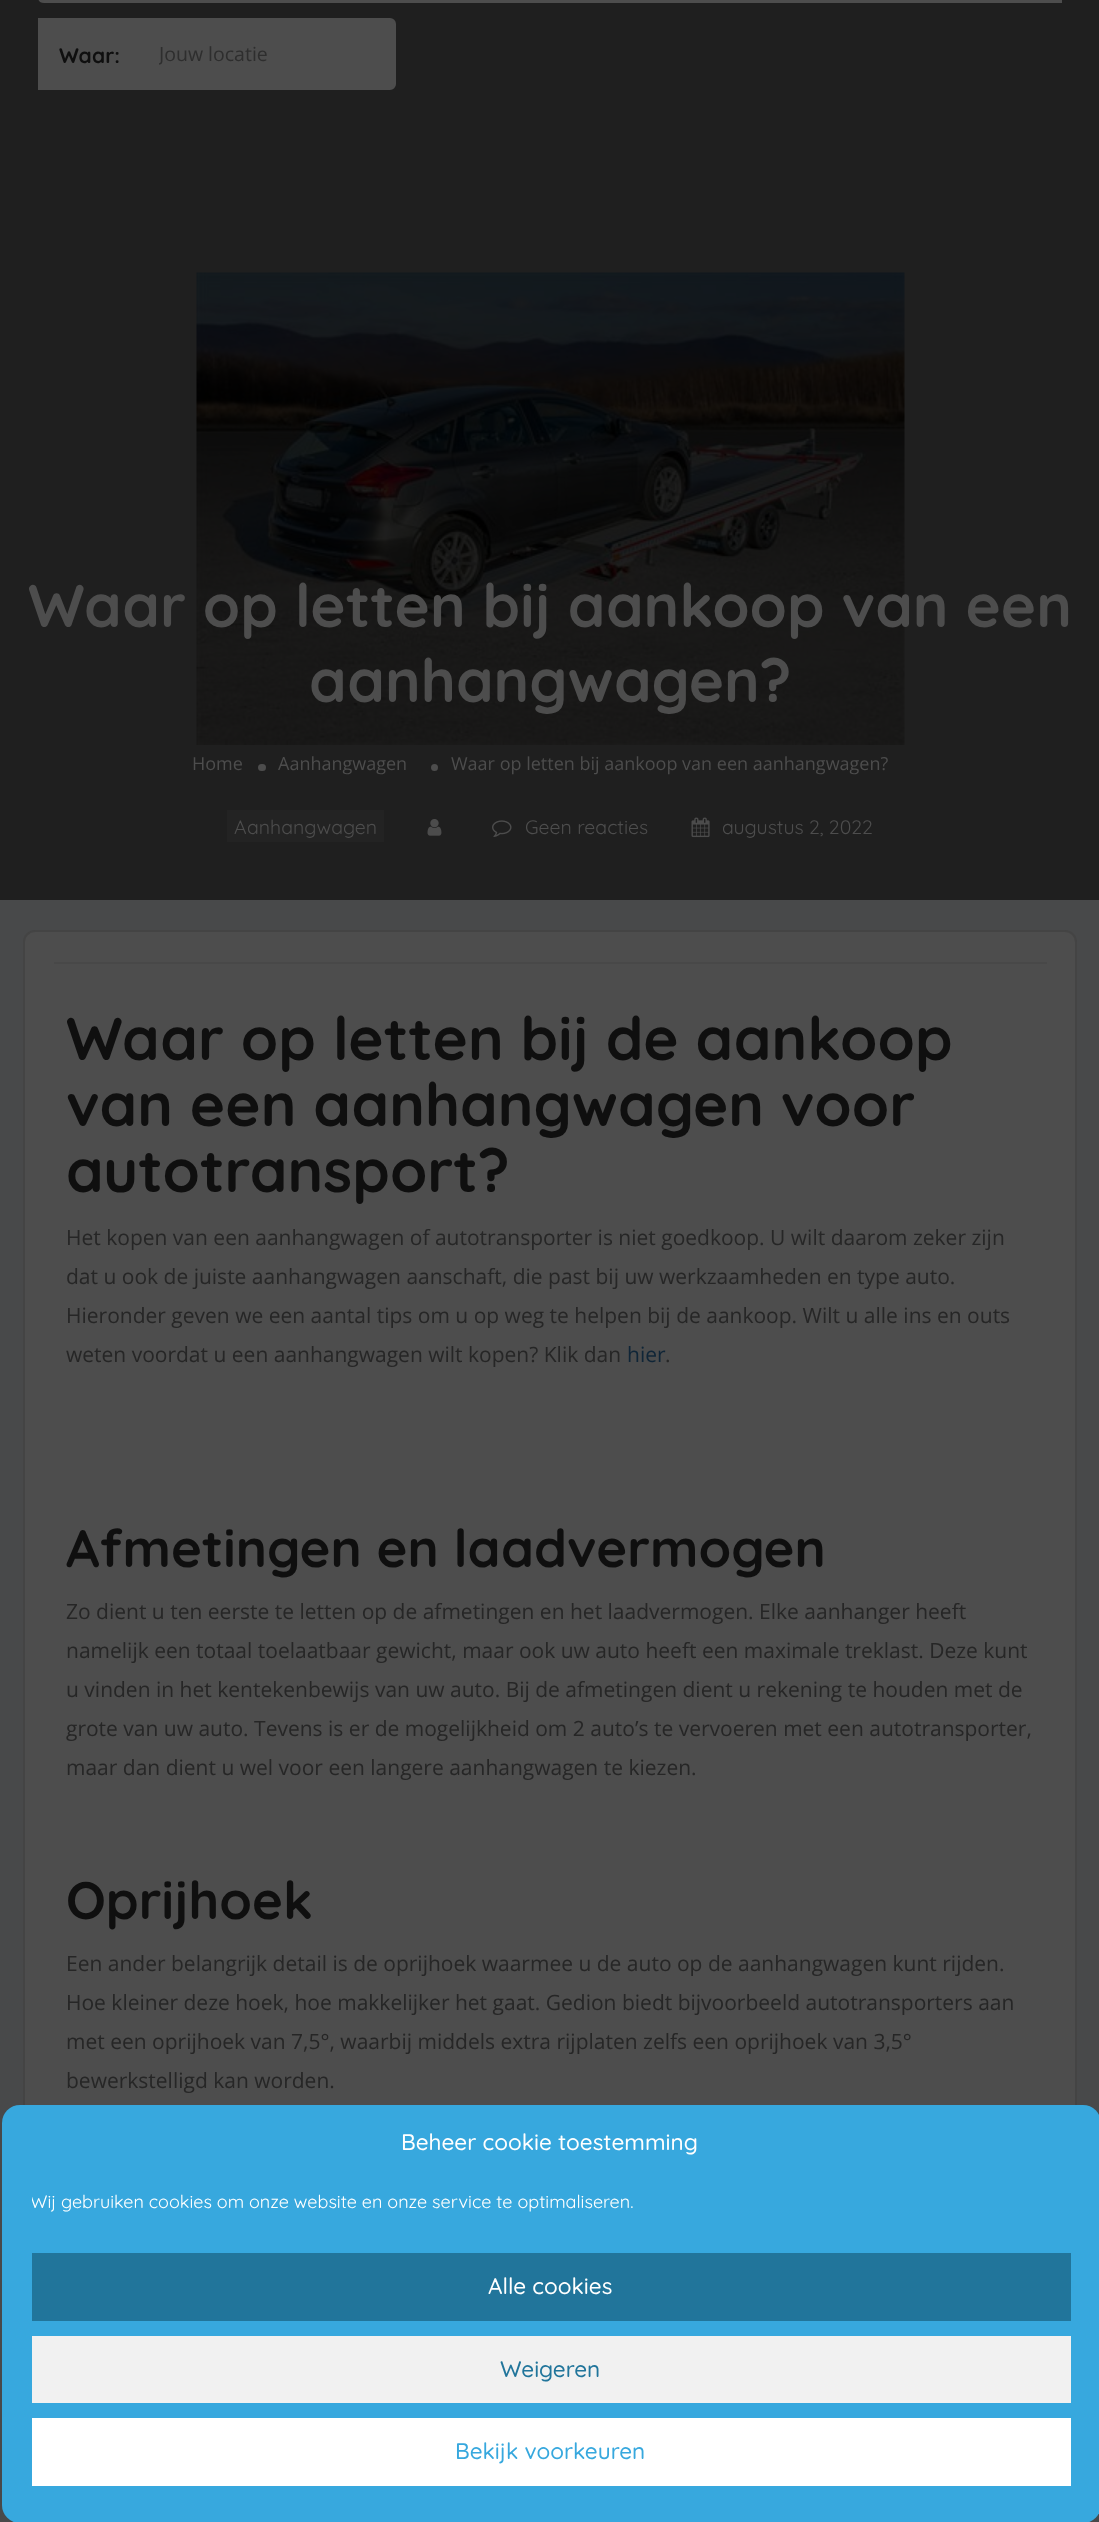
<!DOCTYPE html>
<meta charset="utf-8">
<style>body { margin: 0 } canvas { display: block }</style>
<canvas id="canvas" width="1099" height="2522"></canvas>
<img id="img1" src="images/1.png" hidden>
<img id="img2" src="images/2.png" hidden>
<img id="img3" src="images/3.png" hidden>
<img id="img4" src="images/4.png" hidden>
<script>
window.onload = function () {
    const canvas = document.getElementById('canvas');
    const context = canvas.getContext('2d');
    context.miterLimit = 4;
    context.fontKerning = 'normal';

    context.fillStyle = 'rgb(31, 31, 31)';
    context.fillRect(0, 0, 1099, 2522);
    context.fillStyle = 'rgb(77, 77, 77)';
    context.beginPath();
    context.moveTo(44, -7);
    context.lineTo(1061, -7);
    context.lineTo(1061, 2);
    context.lineTo(44, 2);
    context.bezierCurveTo(41, 2, 39, 0, 39, -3);
    context.lineTo(39, -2);
    context.bezierCurveTo(39, -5, 41, -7, 44, -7);
    context.closePath();
    context.fill();
    context.strokeStyle = 'rgb(77, 77, 77)';
    context.lineWidth = 2;
    context.stroke();
    context.beginPath();
    context.roundRect(39, 19, 356, 70, [0, 5, 5, 0]);
    context.fill();
    context.stroke();
    context.drawImage(document.getElementById('img1'), 196, 272, 709, 473);
    context.beginPath();
    context.roundRect(258, 764, 8, 7, 3.5);
    context.fill();
    context.beginPath();
    context.arc(434.5, 767.5, 3.5, 0, 2 * Math.PI);
    context.fill();
    context.fillStyle = 'rgb(35, 35, 35)';
    context.fillRect(227, 810, 157, 32);
    context.drawImage(document.getElementById('img2'), 427, 819, 15, 17);
    context.drawImage(document.getElementById('img3'), 492, 820, 20, 17);
    context.drawImage(document.getElementById('img4'), 691, 817, 19, 21);
    context.fillStyle = 'rgb(72, 73, 74)';
    context.fillRect(0, 900, 1099, 1622);
    context.fillStyle = 'rgb(77, 77, 77)';
    context.beginPath();
    context.roundRect(24, 931, 1052, 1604, 11);
    context.fill();
    context.strokeStyle = 'rgb(68, 68, 68)';
    context.stroke();
    context.fillStyle = 'rgb(72, 72, 72)';
    context.fillRect(54, 962, 993, 2);
    context.fillStyle = 'rgb(55, 168, 222)';
    context.beginPath();
    context.roundRect(2, 2105, 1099, 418, 18);
    context.fill();
    context.fillStyle = 'rgb(33, 117, 155)';
    context.fillRect(32, 2253, 1039, 68);
    context.fillStyle = 'rgb(241, 241, 241)';
    context.fillRect(32, 2336, 1039, 67);
    context.fillStyle = 'rgb(255, 255, 255)';
    context.fillRect(32, 2418, 1039, 68);
    context.font = 'bold 21px Quicksand';
    context.fillStyle = 'rgb(15, 15, 15)';
    context.fillText('Waar:', 59, 63);
    context.save();
    context.beginPath();
    context.rect(159, 39, 218, 27);
    context.clip();
    context.font = '19.5px Open Sans';
    context.fillStyle = 'rgb(46, 46, 46)';
    context.fillText('Jouw locatie', 159, 61);
    context.restore();
    context.font = 'bold 60px Quicksand';
    context.fillStyle = 'rgb(77, 77, 77)';
    context.fillText('Waar op letten bij aankoop van een', 28, 627);
    context.fillText('aanhangwagen?', 309, 702);
    context.font = '18px Open Sans';
    context.fillText('Home', 192, 770);
    context.fillText('Aanhangwagen', 278, 770);
    context.fillText('Waar op letten bij aankoop van een aanhangwagen?', 451, 770);
    context.font = '19.5px Quicksand';
    context.fillText('Aanhangwagen', 234, 834);
    context.fillText('Geen reacties', 525, 834);
    context.fillText('augustus 2, 2022', 722, 834);
    context.font = 'bold 60px Quicksand';
    context.fillStyle = 'rgb(15, 15, 15)';
    context.fillText('Waar op letten bij de aankoop', 66, 1060);
    context.fillText('van een aanhangwagen voor', 66, 1126);
    context.fillText('autotransport?', 66, 1192);
    context.font = '21px Open Sans';
    context.fillStyle = 'rgb(38, 38, 38)';
    context.fillText('Het kopen van een aanhangwagen of autotransporter is niet goedkoop. U wilt daarom zeker zijn', 66, 1245);
    context.fillText('dat u ook de juiste aanhangwagen aanschaft, die past bij uw werkzaamheden en type auto.', 66, 1284);
    context.fillText('Hieronder geven we een aantal tips om u op weg te helpen bij de aankoop. Wilt u alle ins en outs', 66, 1323);
    context.fillText('weten voordat u een aanhangwagen wilt kopen? Klik dan', 66, 1362);
    context.fillStyle = 'rgb(15, 37, 55)';
    context.fillText('hier', 627, 1362);
    context.fillStyle = 'rgb(38, 38, 38)';
    context.fillText('.', 665, 1362);
    context.font = 'bold 52.5px Quicksand';
    context.fillStyle = 'rgb(15, 15, 15)';
    context.fillText('Afmetingen en laadvermogen', 66, 1567);
    context.font = '21px Open Sans';
    context.fillStyle = 'rgb(38, 38, 38)';
    context.fillText('Zo dient u ten eerste te letten op de afmetingen en het laadvermogen. Elke aanhanger heeft', 66, 1619);
    context.fillText('namelijk een totaal toelaatbaar gewicht, maar ook uw auto heeft een maximale treklast. Deze kunt', 66, 1658);
    context.fillText('u vinden in het kentekenbewijs van uw auto. Bij de afmetingen dient u rekening te houden met de', 66, 1697);
    context.fillText('grote van uw auto. Tevens is er de mogelijkheid om 2 auto’s te vervoeren met een autotransporter,', 66, 1736);
    context.fillText('maar dan dient u wel voor een langere aanhangwagen te kiezen.', 66, 1775);
    context.font = 'bold 52.5px Quicksand';
    context.fillStyle = 'rgb(15, 15, 15)';
    context.fillText('Oprijhoek', 66, 1919);
    context.font = '21px Open Sans';
    context.fillStyle = 'rgb(38, 38, 38)';
    context.fillText('Een ander belangrijk detail is de oprijhoek waarmee u de auto op de aanhangwagen kunt rijden.', 66, 1971);
    context.fillText('Hoe kleiner deze hoek, hoe makkelijker het gaat. Gedion biedt bijvoorbeeld autotransporters aan', 66, 2010);
    context.fillText('met een oprijhoek van 7,5°, waarbij middels extra rijplaten zelfs een oprijhoek van 3,5°', 66, 2049);
    context.fillText('bewerkstelligd kan worden.', 66, 2088);
    context.font = '500 22.5px Quicksand';
    context.fillStyle = 'rgb(255, 255, 255)';
    context.fillText('Beheer cookie toestemming', 401, 2150);
    context.save();
    context.beginPath();
    context.rect(32, 2189, 1039, 34);
    context.clip();
    context.font = '18px Quicksand';
    context.fillText('Wij gebruiken cookies om onze website en onze service te optimaliseren.', 30, 2208);
    context.restore();
    context.fillText('Alle cookies', 488, 2294);
    context.fillStyle = 'rgb(33, 117, 155)';
    context.fillText('Weigeren', 500, 2377);
    context.fillStyle = 'rgb(55, 168, 222)';
    context.fillText('Bekijk voorkeuren', 455, 2459);
};
</script>
